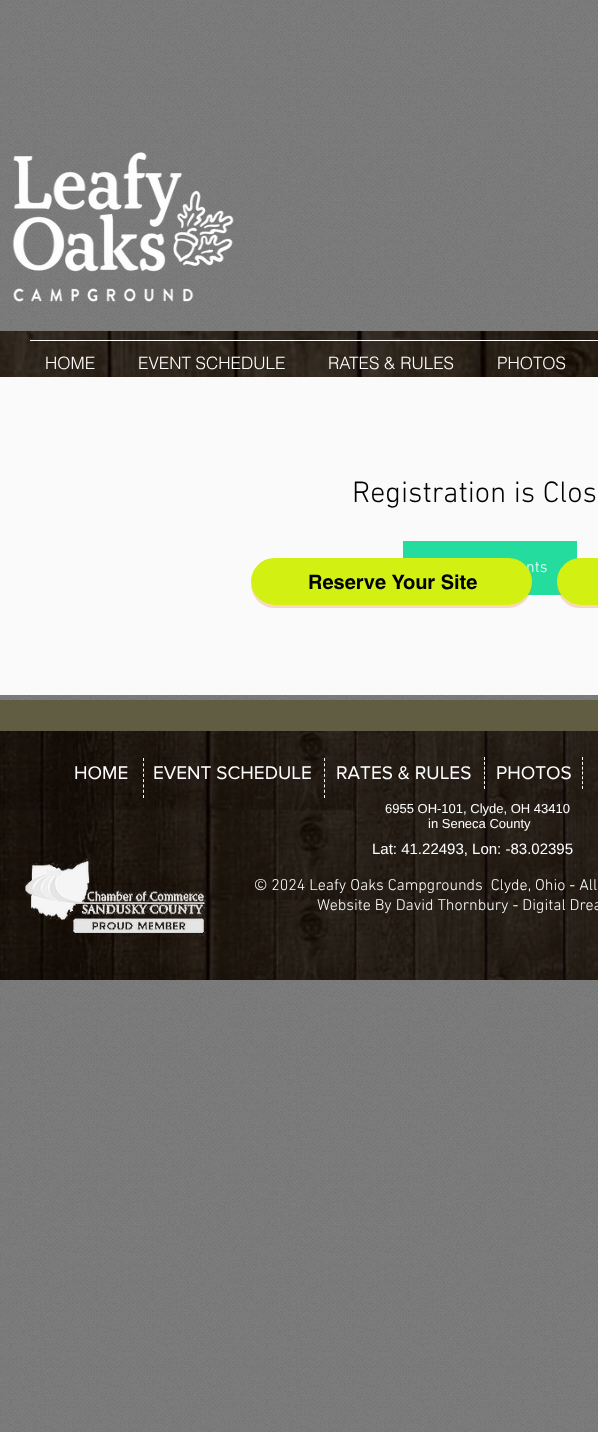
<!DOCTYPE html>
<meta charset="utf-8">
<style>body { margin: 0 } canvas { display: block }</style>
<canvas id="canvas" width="598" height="1432"></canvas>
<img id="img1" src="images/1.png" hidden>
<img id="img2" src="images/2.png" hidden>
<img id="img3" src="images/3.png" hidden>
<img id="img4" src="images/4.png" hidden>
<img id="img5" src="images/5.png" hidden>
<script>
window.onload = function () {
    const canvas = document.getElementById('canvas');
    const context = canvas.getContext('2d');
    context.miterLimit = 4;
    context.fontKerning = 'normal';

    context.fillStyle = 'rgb(125, 125, 125)';
    context.fillRect(0, 0, 598, 1432);
    context.drawImage(document.getElementById('img1'), 0, 0, 598, 1432);
    context.drawImage(document.getElementById('img2'), 12, 152, 222, 150);
    context.fillStyle = 'rgb(0, 0, 0)';
    context.fillRect(0, 331, 598, 46);
    context.drawImage(document.getElementById('img3'), 0, 331, 598, 46);
    context.fillStyle = 'rgb(250, 250, 250)';
    context.fillRect(30, 340, 568, 1);
    context.fillRect(0, 377, 598, 318);
    context.fillStyle = 'rgb(36, 220, 157)';
    context.fillRect(403, 541, 174, 54);
    context.fillStyle = 'rgba(255, 140, 98, 0.35)';
    context.beginPath();
    context.moveTo(251, 583);
    context.lineTo(251, 584);
    context.bezierCurveTo(251, 597, 262, 608, 274, 608);
    context.lineTo(508, 608);
    context.bezierCurveTo(521, 608, 532, 597, 532, 584);
    context.lineTo(532, 583);
    context.bezierCurveTo(531, 595, 521, 605, 508, 605);
    context.lineTo(274, 605);
    context.bezierCurveTo(262, 605, 252, 595, 251, 583);
    context.closePath();
    context.fill();
    context.beginPath();
    context.moveTo(557, 583);
    context.bezierCurveTo(556, 596, 567, 608, 580, 608);
    context.lineTo(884, 608);
    context.bezierCurveTo(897, 608, 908, 596, 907, 583);
    context.bezierCurveTo(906, 595, 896, 605, 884, 605);
    context.lineTo(580, 605);
    context.bezierCurveTo(568, 605, 558, 595, 557, 583);
    context.closePath();
    context.fill();
    context.fillStyle = 'rgb(210, 240, 17)';
    context.beginPath();
    context.roundRect(557, 558, 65, 47, 23.5);
    context.fill();
    context.fillStyle = 'rgb(96, 93, 67)';
    context.fillRect(0, 700, 598, 31);
    context.fillStyle = 'rgb(0, 0, 0)';
    context.fillRect(0, 731, 598, 249);
    context.drawImage(document.getElementById('img4'), 0, 731, 598, 249);
    context.beginPath();
    context.moveTo(143.5, 758);
    context.lineTo(143.5, 798);
    context.strokeStyle = 'rgb(250, 250, 250)';
    context.setLineDash([3, 2.29]);
    context.stroke();
    context.beginPath();
    context.moveTo(324.5, 758);
    context.lineTo(324.5, 798);
    context.stroke();
    context.beginPath();
    context.moveTo(484.5, 757);
    context.lineTo(484.5, 789);
    context.setLineDash([3, 1.83]);
    context.stroke();
    context.beginPath();
    context.moveTo(582.5, 757);
    context.lineTo(582.5, 789);
    context.stroke();
    context.drawImage(document.getElementById('img5'), 24, 857, 182, 80);
    context.font = '300 17px helvetica';
    context.fillStyle = 'rgb(255, 255, 255)';
    context.fillText('HOME', 45, 369);
    context.fillText('EVENT SCHEDULE', 138, 369);
    context.fillText('RATES & RULES', 328, 369);
    context.fillText('PHOTOS', 497, 369);
    context.font = '300 30px "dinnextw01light"';
    context.fillStyle = 'rgb(0, 0, 0)';
    context.fillText('Registration is Clos', 352, 502);
    context.font = '300 16px "dinnextw01light"';
    context.fillStyle = 'rgb(255, 255, 255)';
    context.fillText('nts', 526, 572);
    context.fillStyle = 'rgb(210, 240, 17)';
    context.beginPath();
    context.roundRect(251, 558, 281, 47, 23.5);
    context.fill();
    context.font = 'bold 20px helvetica';
    context.fillStyle = 'rgb(0, 0, 0)';
    context.fillText('Reserve Your Site', 308, 589);
    context.font = '19px "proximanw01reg"';
    context.fillStyle = 'rgb(255, 255, 255)';
    context.fillText('HOME', 74, 779);
    context.fillText('EVENT SCHEDULE', 153, 779);
    context.fillText('RATES & RULES', 336, 779);
    context.fillText('PHOTOS', 496, 779);
    context.font = '13px Liberation Sans';
    context.fillText('6955 OH-101, Clyde, OH 43410', 385, 813);
    context.fillText('in Seneca County', 428, 828);
    context.font = '15px Liberation Sans';
    context.fillText('Lat: 41.22493, Lon: -83.02395', 372, 854);
    context.font = '300 16px "dinnextw01light"';
    context.fillText('© 2024 Leafy Oaks Campgrounds  Clyde, Ohio - All', 254, 890);
    context.fillText('Website By David Thornbury - Digital Drea', 317, 910);
};
</script>
